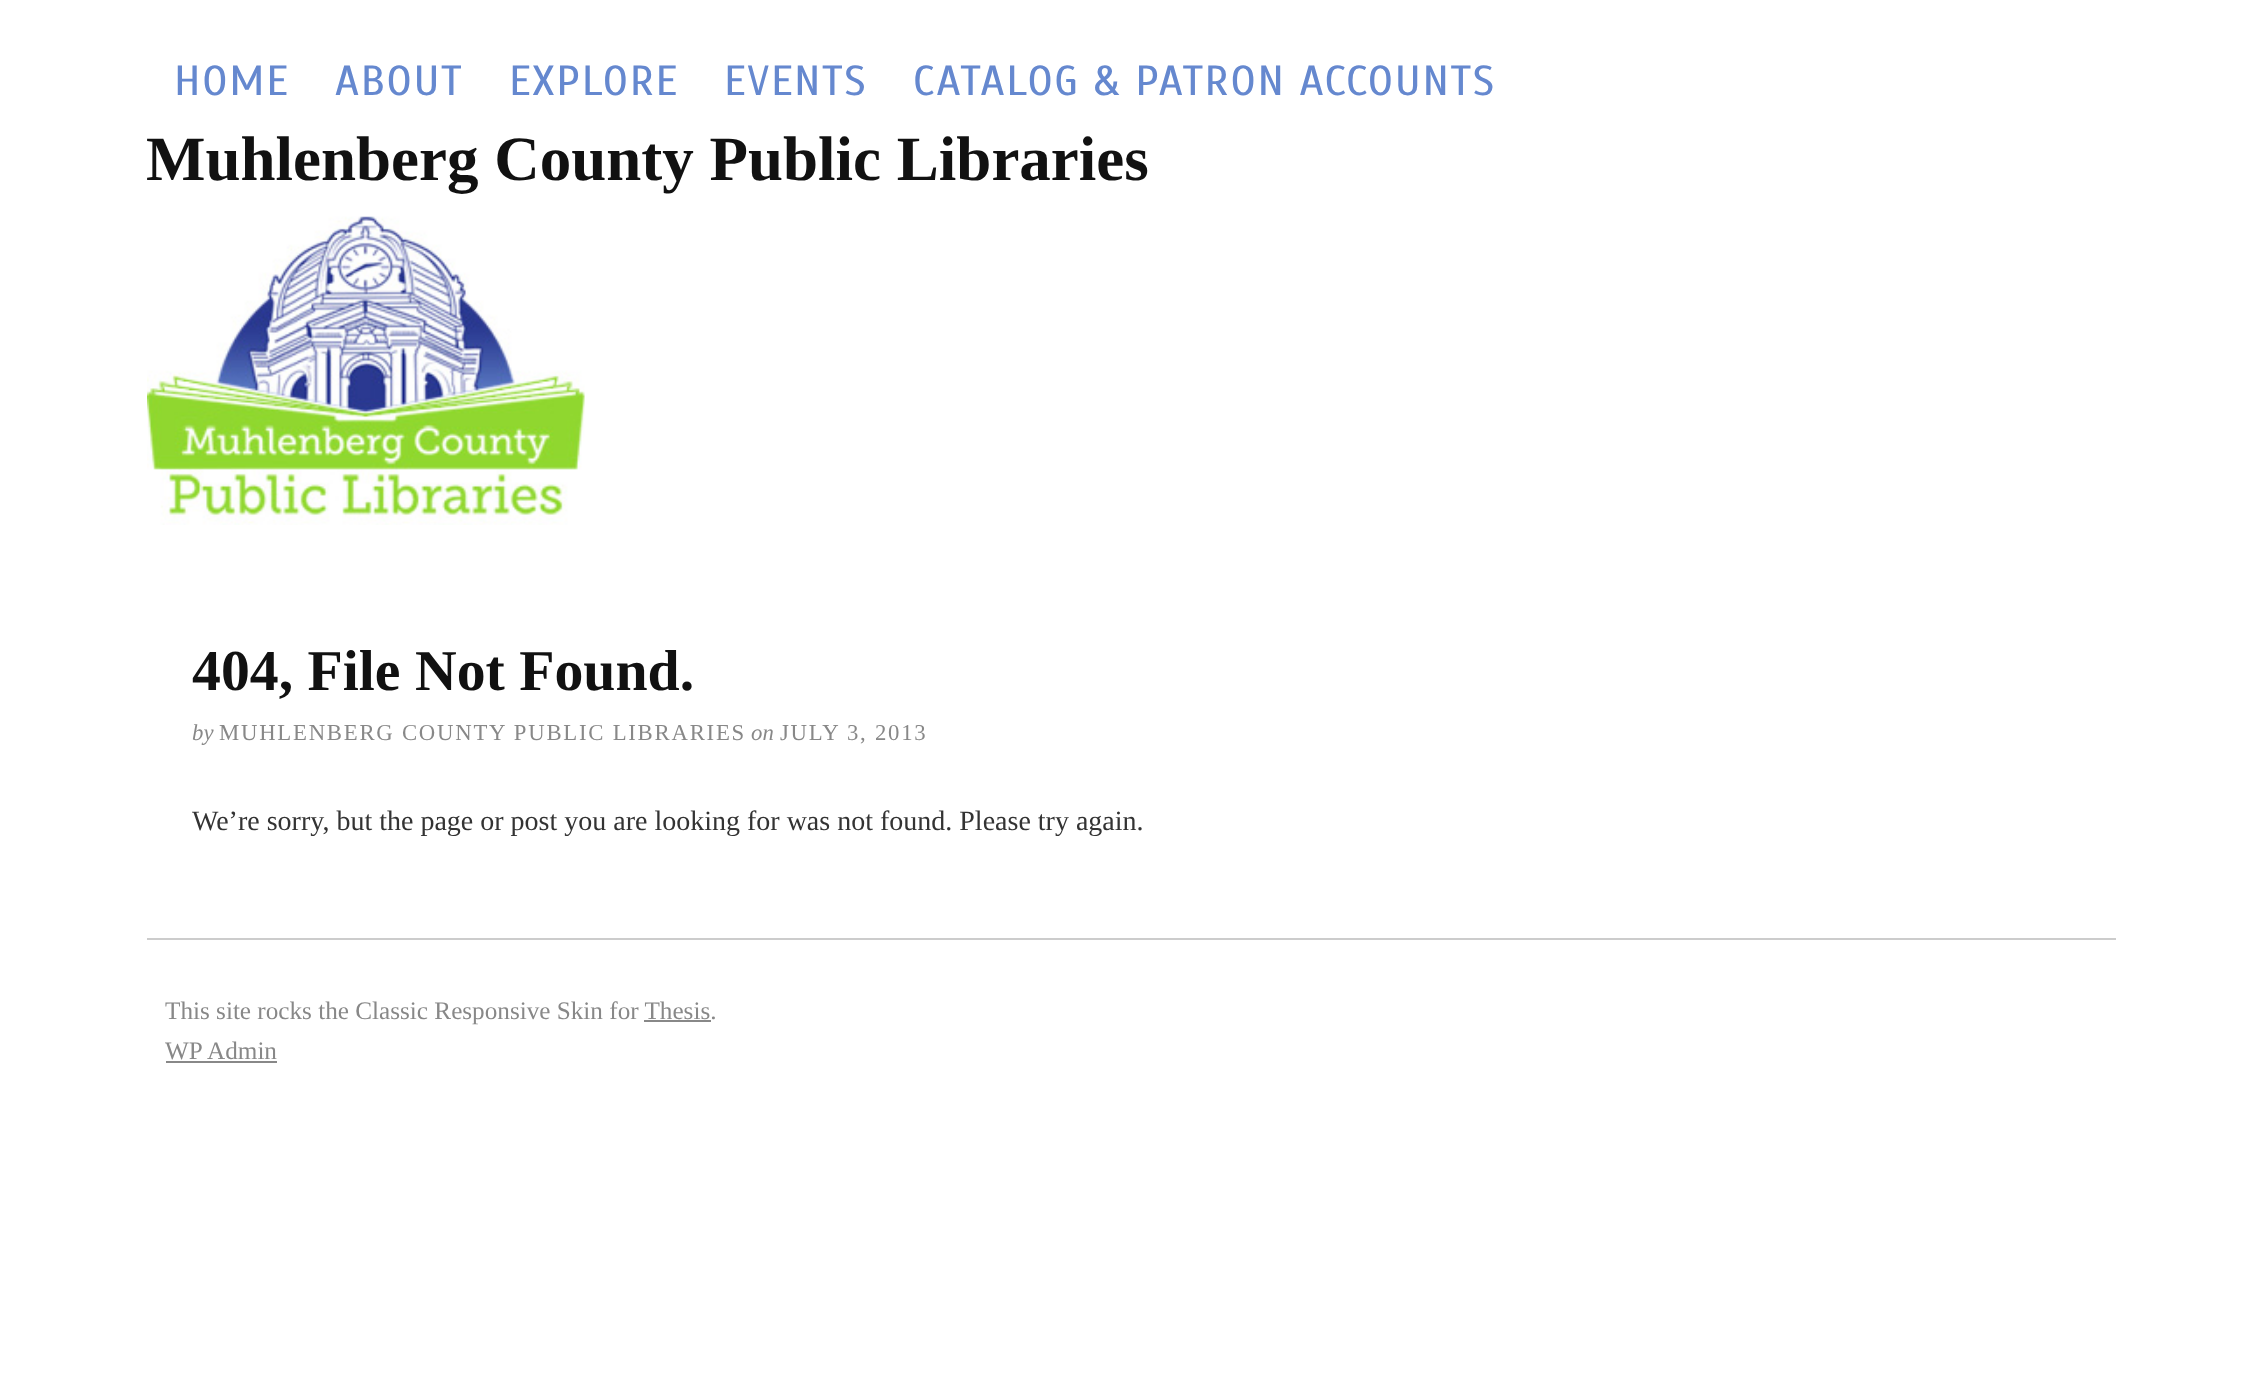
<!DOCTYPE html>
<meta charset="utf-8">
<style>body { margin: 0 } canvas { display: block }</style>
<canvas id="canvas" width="2261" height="1397"></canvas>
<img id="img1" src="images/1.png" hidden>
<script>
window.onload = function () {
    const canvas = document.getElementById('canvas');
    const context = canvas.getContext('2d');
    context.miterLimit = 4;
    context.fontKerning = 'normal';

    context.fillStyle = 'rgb(255, 255, 255)';
    context.fillRect(0, 0, 2261, 1397);
    context.drawImage(document.getElementById('img1'), 147, 216, 438, 309);
    context.fillStyle = 'rgb(204, 204, 204)';
    context.fillRect(147, 938, 1969, 2);
    context.fillStyle = 'rgb(136, 136, 136)';
    context.fillRect(644, 1020, 67, 2);
    context.fillRect(166, 1061, 111, 2);
    context.letterSpacing = '1.75px';
    context.font = '42px Scada';
    context.fillStyle = 'rgb(101, 136, 207)';
    context.fillText('HOME', 174, 95);
    context.fillText('ABOUT', 335, 95);
    context.fillText('EXPLORE', 509, 95);
    context.fillText('EVENTS', 724, 95);
    context.fillText('CATALOG & PATRON ACCOUNTS', 913, 95);
    context.letterSpacing = '0px';
    context.font = 'bold 63px Liberation Serif';
    context.fillStyle = 'rgb(17, 17, 17)';
    context.fillText('Muhlenberg County Public Libraries', 146, 180);
    context.font = 'bold 57.75px Liberation Serif';
    context.fillText('404, File Not Found.', 192, 690);
    context.font = 'italic 22.75px Liberation Serif';
    context.fillStyle = 'rgb(136, 136, 136)';
    context.fillText('by', 192, 740);
    context.letterSpacing = '1.75px';
    context.font = '22.75px Liberation Serif';
    context.fillText('MUHLENBERG COUNTY PUBLIC LIBRARIES', 219, 740);
    context.letterSpacing = '0px';
    context.font = 'italic 22.75px Liberation Serif';
    context.fillText('on', 751, 740);
    context.letterSpacing = '1.75px';
    context.font = '22.75px Liberation Serif';
    context.fillText('JULY 3, 2013', 780, 740);
    context.letterSpacing = '0px';
    context.font = '28px Liberation Serif';
    context.fillStyle = 'rgb(51, 51, 51)';
    context.fillText('We’re sorry, but the page or post you are looking for was not found. Please try again.', 192, 830);
    context.font = '25.2px Liberation Serif';
    context.fillStyle = 'rgb(136, 136, 136)';
    context.fillText('This site rocks the Classic Responsive Skin for Thesis.', 165, 1019);
    context.fillText('WP', 165, 1059);
    context.fillText('Admin', 207, 1059);
};
</script>
